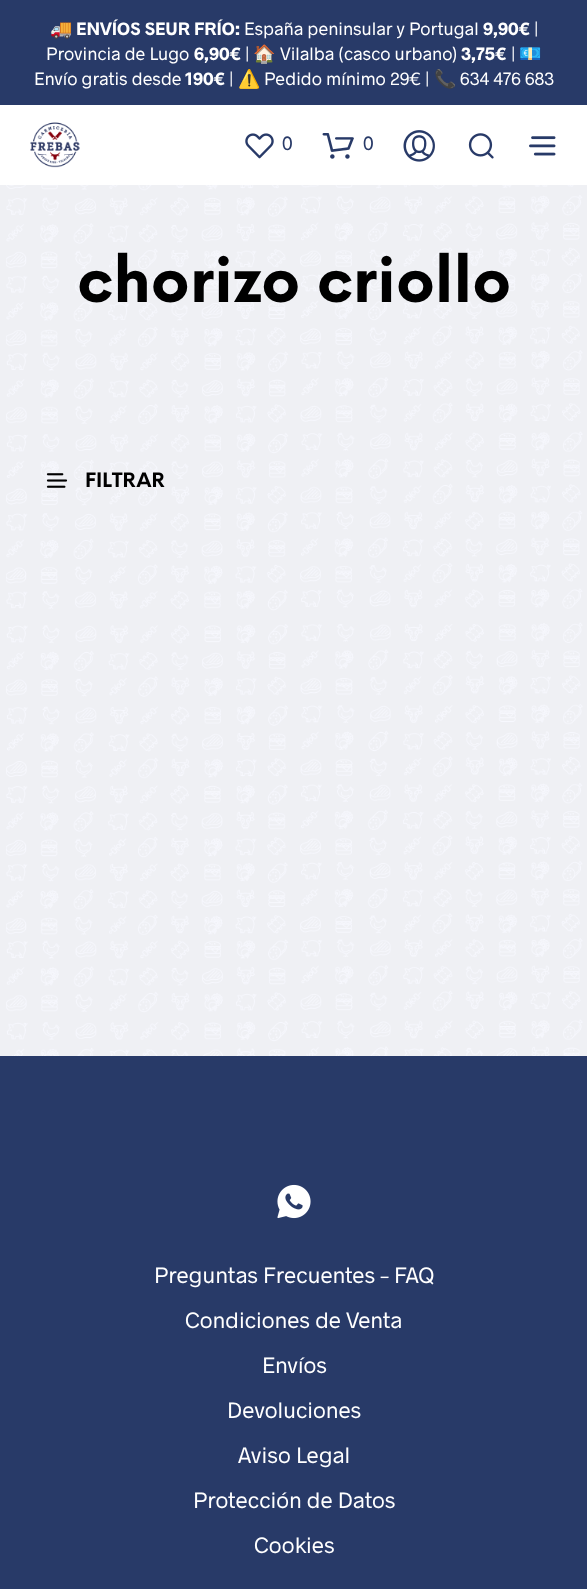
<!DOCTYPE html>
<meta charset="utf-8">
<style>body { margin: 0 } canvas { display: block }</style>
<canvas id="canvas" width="587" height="1589"></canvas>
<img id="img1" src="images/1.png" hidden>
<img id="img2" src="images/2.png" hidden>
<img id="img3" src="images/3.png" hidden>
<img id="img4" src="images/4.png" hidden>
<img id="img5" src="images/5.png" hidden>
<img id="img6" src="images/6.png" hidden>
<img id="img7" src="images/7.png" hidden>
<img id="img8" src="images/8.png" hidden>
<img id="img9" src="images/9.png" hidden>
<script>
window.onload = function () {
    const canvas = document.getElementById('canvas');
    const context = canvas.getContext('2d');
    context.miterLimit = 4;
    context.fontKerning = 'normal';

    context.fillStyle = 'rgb(239, 240, 244)';
    context.fillRect(0, 0, 587, 1589);
    context.drawImage(document.getElementById('img1'), 6, 185, 577, 871);
    context.fillStyle = 'rgb(40, 58, 104)';
    context.fillRect(0, 0, 587, 105);
    context.fillStyle = 'rgb(255, 255, 255)';
    context.fillRect(0, 105, 587, 80);
    context.drawImage(document.getElementById('img2'), 30, 122, 50, 46);
    context.drawImage(document.getElementById('img3'), 245, 133, 29, 26);
    context.drawImage(document.getElementById('img4'), 322, 133, 32, 26);
    context.drawImage(document.getElementById('img5'), 403, 130, 32, 32);
    context.drawImage(document.getElementById('img6'), 468, 133, 26, 26);
    context.drawImage(document.getElementById('img7'), 529, 136, 27, 20);
    context.drawImage(document.getElementById('img8'), 46, 473, 22, 15);
    context.fillStyle = 'rgb(40, 58, 104)';
    context.fillRect(0, 1056, 587, 533);
    context.drawImage(document.getElementById('img9'), 277, 1184, 34, 35);
    context.font = '18px Noto Color Emoji';
    context.fillStyle = 'rgb(255, 255, 255)';
    context.fillText('🚚', 50, 35);
    context.font = 'bold 18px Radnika';
    context.fillText('ENVÍOS SEUR FRÍO:', 76, 35);
    context.font = '18px Radnika';
    context.fillText('España peninsular y Portugal', 244, 35);
    context.font = 'bold 18px Radnika';
    context.fillText('9,90€', 483, 35);
    context.font = '18px Radnika';
    context.fillText('|', 534, 35);
    context.fillText('Provincia de Lugo', 46, 60);
    context.font = 'bold 18px Radnika';
    context.fillText('6,90€', 194, 60);
    context.font = '18px Radnika';
    context.fillText('|', 245, 60);
    context.font = '18px Noto Color Emoji';
    context.fillText('🏠', 253, 60);
    context.font = '18px Radnika';
    context.fillText('Vilalba (casco urbano)', 280, 60);
    context.font = 'bold 18px Radnika';
    context.fillText('3,75€', 461, 60);
    context.font = '18px Radnika';
    context.fillText('|', 511, 60);
    context.font = '18px Noto Color Emoji';
    context.fillText('💶', 519, 60);
    context.font = '18px Radnika';
    context.fillText('Envío gratis desde', 34, 85);
    context.font = 'bold 18px Radnika';
    context.fillText('190€', 185, 85);
    context.font = '18px Radnika';
    context.fillText('|', 229, 85);
    context.font = '18px Noto Color Emoji';
    context.fillText('⚠️', 238, 85);
    context.font = '18px Radnika';
    context.fillText('Pedido mínimo 29€ |', 264, 85);
    context.font = '18px Noto Color Emoji';
    context.fillText('📞', 434, 85);
    context.font = '18px Radnika';
    context.fillText('634 476 683', 460, 85);
    context.font = '19.5px Radnika';
    context.fillStyle = 'rgb(40, 58, 104)';
    context.fillText('0', 282, 150);
    context.fillText('0', 363, 150);
    context.font = 'bold 61.5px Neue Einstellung';
    context.fillStyle = 'rgb(0, 0, 0)';
    context.fillText('chorizo criollo', 77, 302);
    context.font = 'bold 19.5px Neue Einstellung';
    context.fillText('FILTRAR', 85, 487);
    context.font = '22.5px Radnika';
    context.fillStyle = 'rgb(255, 255, 255)';
    context.fillText('Preguntas Frecuentes – FAQ', 154, 1283);
    context.fillText('Condiciones de Venta', 185, 1328);
    context.fillText('Envíos', 262, 1373);
    context.fillText('Devoluciones', 227, 1418);
    context.fillText('Aviso Legal', 238, 1463);
    context.fillText('Protección de Datos', 193, 1508);
    context.fillText('Cookies', 254, 1553);
};
</script>
